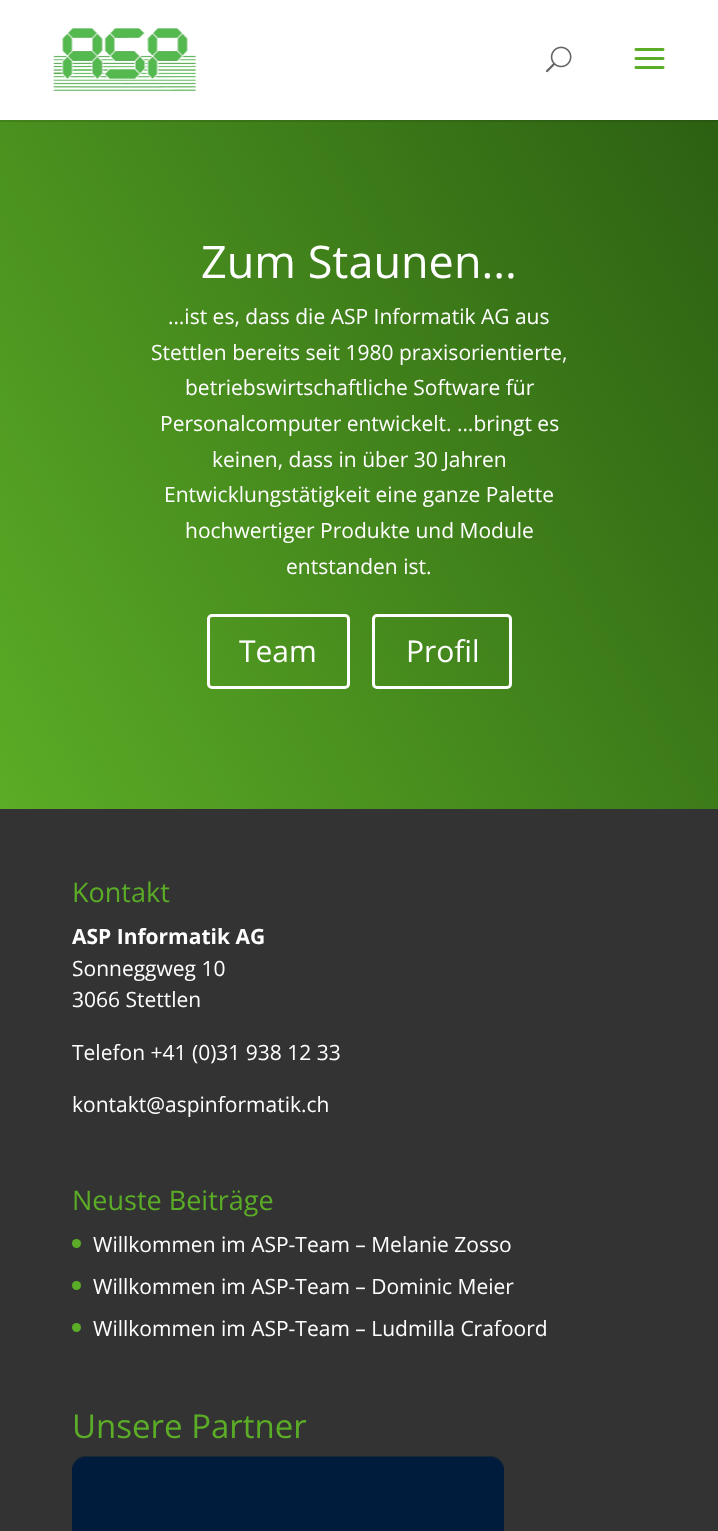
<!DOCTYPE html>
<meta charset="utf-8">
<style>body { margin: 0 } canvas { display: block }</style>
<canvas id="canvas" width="718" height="1531"></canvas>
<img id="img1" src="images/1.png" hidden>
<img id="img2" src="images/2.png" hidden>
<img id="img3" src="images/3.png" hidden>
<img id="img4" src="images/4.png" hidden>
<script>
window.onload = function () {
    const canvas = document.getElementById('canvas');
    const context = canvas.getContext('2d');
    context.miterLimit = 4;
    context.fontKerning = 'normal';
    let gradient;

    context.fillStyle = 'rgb(51, 51, 51)';
    context.fillRect(0, 0, 718, 1531);
    gradient = context.createLinearGradient(-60, 705, 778, 222);
    gradient.addColorStop(0, 'rgb(91, 172, 38)');
    gradient.addColorStop(1, 'rgb(44, 96, 18)');
    context.fillStyle = gradient;
    context.fillRect(0, 120, 718, 689);
    context.fillStyle = 'rgba(0, 0, 0, 0.1)';
    context.beginPath();
    context.moveTo(0, 120);
    context.lineTo(0, 122);
    context.lineTo(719, 122);
    context.lineTo(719, 2);
    context.lineTo(718, 2);
    context.lineTo(718, 120);
    context.closePath();
    context.fill();
    context.fillStyle = 'rgb(255, 255, 255)';
    context.fillRect(0, 0, 718, 120);
    context.drawImage(document.getElementById('img1'), 53, 28, 144, 63);
    context.drawImage(document.getElementById('img2'), 545, 46, 27, 27);
    context.drawImage(document.getElementById('img3'), 634, 48, 31, 21);
    context.beginPath();
    context.roundRect(208.5, 615.5, 140, 72, 3.5);
    context.strokeStyle = 'rgb(255, 255, 255)';
    context.lineWidth = 3;
    context.stroke();
    context.beginPath();
    context.roundRect(373.5, 615.5, 137, 72, 3.5);
    context.stroke();
    context.fillStyle = 'rgb(91, 172, 38)';
    context.beginPath();
    context.arc(76.5, 1243.5, 4.5, 0, 2 * Math.PI);
    context.fill();
    context.beginPath();
    context.arc(76.5, 1285.5, 4.5, 0, 2 * Math.PI);
    context.fill();
    context.beginPath();
    context.arc(76.5, 1327.5, 4.5, 0, 2 * Math.PI);
    context.fill();
    context.drawImage(document.getElementById('img4'), 72, 1456, 432, 75);
    context.font = '45px Open Sans';
    context.fillStyle = 'rgb(255, 255, 255)';
    context.fillText('Zum Staunen...', 201, 278);
    context.font = '21px Open Sans';
    context.fillText('…ist es, dass die ASP Informatik AG aus', 168, 324);
    context.fillText('Stettlen bereits seit 1980 praxisorientierte,', 151, 360);
    context.fillText('betriebswirtschaftliche Software für', 185, 395);
    context.fillText('Personalcomputer entwickelt. …bringt es', 160, 431);
    context.fillText('keinen, dass in über 30 Jahren', 212, 467);
    context.fillText('Entwicklungstätigkeit eine ganze Palette', 164, 502);
    context.fillText('hochwertiger Produkte und Module', 185, 538);
    context.fillText('entstanden ist.', 286, 574);
    context.font = '30px Open Sans';
    context.fillText('Team', 239, 662);
    context.fillText('Profil', 406, 662);
    context.font = '27px Open Sans';
    context.fillStyle = 'rgb(91, 172, 38)';
    context.fillText('Kontakt', 72, 902);
    context.font = 'bold 21px Open Sans';
    context.fillStyle = 'rgb(255, 255, 255)';
    context.fillText('ASP Informatik AG', 72, 944);
    context.font = '21px Open Sans';
    context.fillText('Sonneggweg 10', 72, 976);
    context.fillText('3066 Stettlen', 72, 1007);
    context.fillText('Telefon +41 (0)31 938 12 33', 72, 1060);
    context.fillText('kontakt@aspinformatik.ch', 72, 1112);
    context.font = '27px Open Sans';
    context.fillStyle = 'rgb(91, 172, 38)';
    context.fillText('Neuste Beiträge', 72, 1210);
    context.font = '21px Open Sans';
    context.fillStyle = 'rgb(255, 255, 255)';
    context.fillText('Willkommen im ASP-Team – Melanie Zosso', 93, 1252);
    context.fillText('Willkommen im ASP-Team – Dominic Meier', 93, 1294);
    context.fillText('Willkommen im ASP-Team – Ludmilla Crafoord', 93, 1336);
    context.font = '33px Open Sans';
    context.fillStyle = 'rgb(91, 172, 38)';
    context.fillText('Unsere Partner', 72, 1438);
};
</script>
